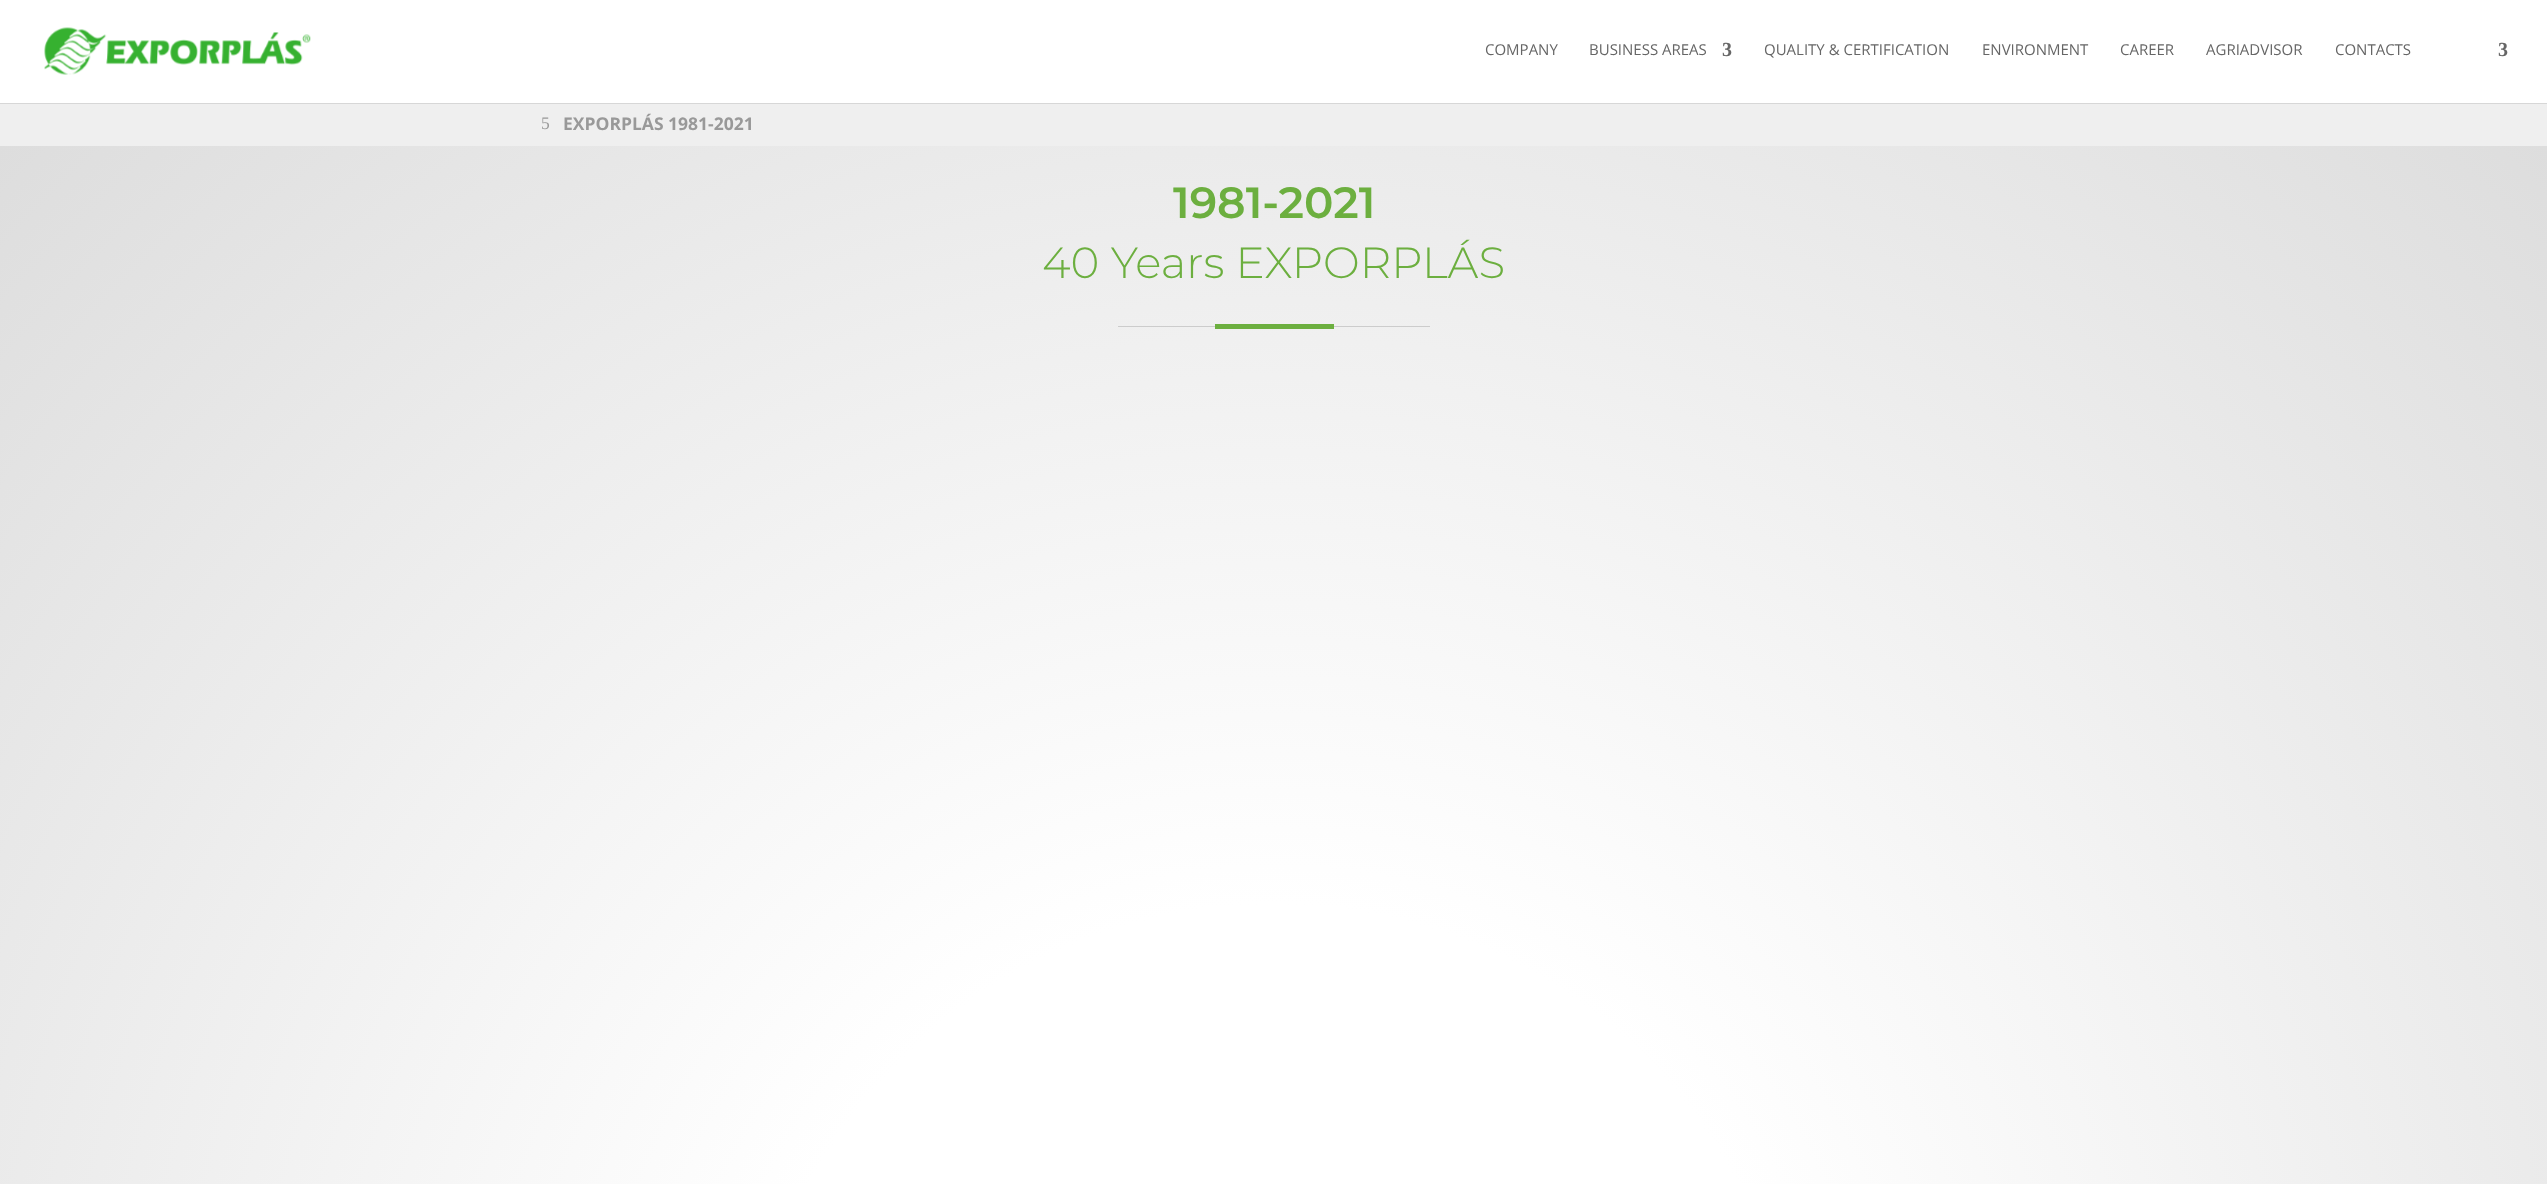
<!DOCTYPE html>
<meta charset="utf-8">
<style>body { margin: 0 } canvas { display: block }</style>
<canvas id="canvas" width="2547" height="1184"></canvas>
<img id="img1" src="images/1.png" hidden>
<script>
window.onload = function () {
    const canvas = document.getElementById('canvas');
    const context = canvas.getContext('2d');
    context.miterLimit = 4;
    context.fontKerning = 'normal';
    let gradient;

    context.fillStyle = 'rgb(239, 239, 239)';
    context.fillRect(0, 0, 2547, 1184);
    context.fillStyle = 'rgb(215, 215, 215)';
    context.beginPath();
    context.moveTo(0, 102);
    context.lineTo(0, 104);
    context.lineTo(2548, 104);
    context.lineTo(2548, 1);
    context.lineTo(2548, 102);
    context.closePath();
    context.fill();
    context.fillStyle = 'rgb(255, 255, 255)';
    context.fillRect(0, 0, 2547, 103);
    context.drawImage(document.getElementById('img1'), 44, 27, 267, 48);
    gradient = context.createRadialGradient(1274, 1429, 0, 1274, 1429, 1808);
    gradient.addColorStop(0.29, 'rgb(255, 255, 255)');
    gradient.addColorStop(1, 'rgb(221, 221, 221)');
    context.fillStyle = gradient;
    context.fillRect(0, 146, 2547, 1038);
    context.fillStyle = 'rgb(204, 204, 204)';
    context.fillRect(1118, 326, 312, 1);
    context.fillStyle = 'rgb(108, 175, 63)';
    context.fillRect(1215, 324, 119, 5);
    context.font = '15px Open Sans';
    context.fillStyle = 'rgb(102, 102, 102)';
    context.fillText('COMPANY', 1485, 55);
    context.fillText('BUSINESS AREAS', 1589, 55);
    context.font = 'bold 20px Liberation Serif';
    context.fillText('3', 1722, 56);
    context.font = '15px Open Sans';
    context.fillText('QUALITY & CERTIFICATION', 1764, 55);
    context.fillText('ENVIRONMENT', 1982, 55);
    context.fillText('CAREER', 2120, 55);
    context.fillText('AGRIADVISOR', 2206, 55);
    context.fillText('CONTACTS', 2335, 55);
    context.font = 'bold 20px Liberation Serif';
    context.fillText('3', 2498, 56);
    context.font = '17.5px Liberation Serif';
    context.fillStyle = 'rgb(153, 153, 153)';
    context.fillText('5', 541, 129);
    context.font = 'bold 17.5px Open Sans';
    context.fillText('EXPORPLÁS 1981-2021', 563, 130);
    context.font = '600 43.75px Montserrat';
    context.fillStyle = 'rgb(108, 175, 63)';
    context.fillText('1981-2021', 1173, 218);
    context.font = '300 43.75px Montserrat';
    context.fillText('40 Years EXPORPLÁS', 1042, 278);
};
</script>
